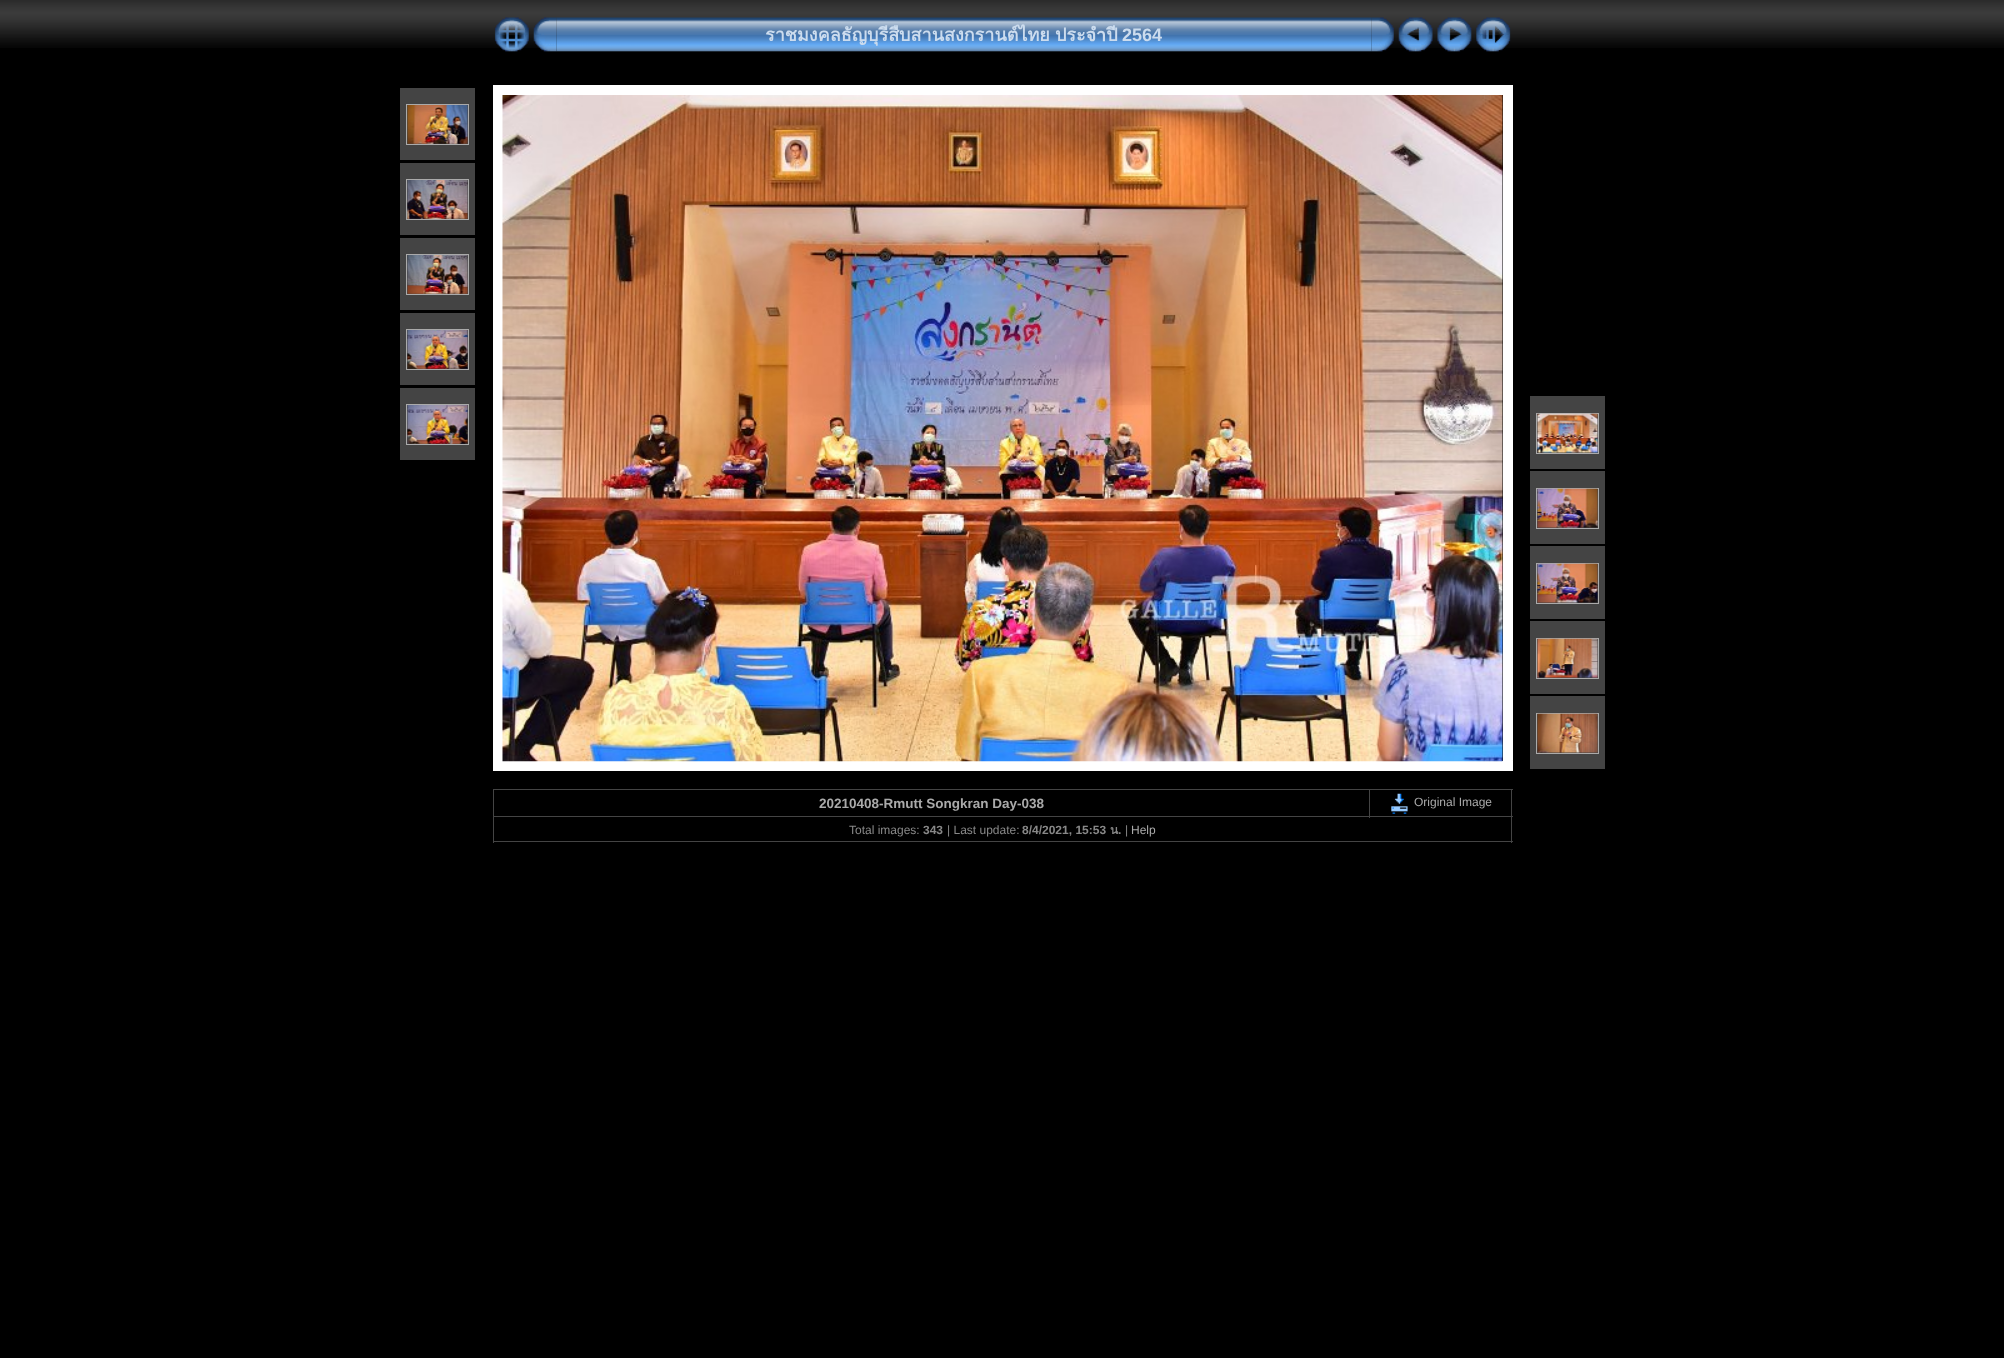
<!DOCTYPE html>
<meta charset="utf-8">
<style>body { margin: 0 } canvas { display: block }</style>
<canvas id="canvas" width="2004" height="1358"></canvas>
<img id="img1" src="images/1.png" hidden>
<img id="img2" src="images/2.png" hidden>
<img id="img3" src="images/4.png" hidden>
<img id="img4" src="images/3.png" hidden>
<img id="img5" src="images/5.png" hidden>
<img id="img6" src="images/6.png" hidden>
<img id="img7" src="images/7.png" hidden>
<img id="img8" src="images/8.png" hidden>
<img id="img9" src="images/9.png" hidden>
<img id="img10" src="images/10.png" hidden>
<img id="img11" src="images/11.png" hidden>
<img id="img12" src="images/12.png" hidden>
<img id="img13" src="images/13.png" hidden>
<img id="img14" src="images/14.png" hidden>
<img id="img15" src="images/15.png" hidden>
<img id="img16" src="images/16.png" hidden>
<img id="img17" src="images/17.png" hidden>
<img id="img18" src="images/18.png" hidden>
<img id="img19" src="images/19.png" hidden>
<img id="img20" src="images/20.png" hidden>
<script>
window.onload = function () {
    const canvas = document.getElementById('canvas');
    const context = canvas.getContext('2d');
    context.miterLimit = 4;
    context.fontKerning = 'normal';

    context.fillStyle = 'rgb(0, 0, 0)';
    context.fillRect(0, 0, 2004, 1358);
    context.drawImage(document.getElementById('img1'), 0, 0, 2004, 48);
    context.drawImage(document.getElementById('img2'), 494, 17, 35, 35);
    context.drawImage(document.getElementById('img3'), 556, 17, 816, 35);
    context.drawImage(document.getElementById('img4'), 533, 17, 24, 35);
    context.drawImage(document.getElementById('img5'), 1371, 17, 23, 35);
    context.drawImage(document.getElementById('img6'), 1398, 17, 35, 35);
    context.drawImage(document.getElementById('img7'), 1437, 17, 35, 35);
    context.drawImage(document.getElementById('img8'), 1476, 17, 35, 35);
    context.fillStyle = 'rgb(68, 68, 68)';
    context.fillRect(400, 88, 75, 72);
    context.strokeStyle = 'rgb(170, 170, 170)';
    context.strokeRect(406.5, 104.5, 62, 40);
    context.drawImage(document.getElementById('img9'), 407, 105, 61, 39);
    context.fillRect(400, 163, 75, 72);
    context.strokeRect(406.5, 179.5, 62, 40);
    context.drawImage(document.getElementById('img10'), 407, 180, 61, 39);
    context.fillRect(400, 238, 75, 72);
    context.strokeRect(406.5, 254.5, 62, 40);
    context.drawImage(document.getElementById('img11'), 407, 255, 61, 39);
    context.fillRect(400, 313, 75, 72);
    context.strokeRect(406.5, 329.5, 62, 40);
    context.drawImage(document.getElementById('img12'), 407, 330, 61, 39);
    context.fillRect(400, 388, 75, 72);
    context.strokeRect(406.5, 404.5, 62, 40);
    context.drawImage(document.getElementById('img13'), 407, 405, 61, 39);
    context.strokeStyle = 'rgb(255, 255, 255)';
    context.lineWidth = 10;
    context.strokeRect(498, 90, 1010, 676);
    context.drawImage(document.getElementById('img14'), 502, 95, 1001, 667);
    context.fillRect(1530, 396, 75, 73);
    context.strokeStyle = 'rgb(170, 170, 170)';
    context.lineWidth = 1;
    context.strokeRect(1536.5, 413.5, 62, 40);
    context.drawImage(document.getElementById('img15'), 1537, 413, 61, 40);
    context.fillRect(1530, 471, 75, 73);
    context.strokeRect(1536.5, 488.5, 62, 40);
    context.drawImage(document.getElementById('img16'), 1537, 488, 61, 40);
    context.fillRect(1530, 546, 75, 73);
    context.strokeRect(1536.5, 563.5, 62, 40);
    context.drawImage(document.getElementById('img17'), 1537, 563, 61, 40);
    context.fillRect(1530, 621, 75, 73);
    context.strokeRect(1536.5, 638.5, 62, 40);
    context.drawImage(document.getElementById('img18'), 1537, 638, 61, 40);
    context.fillRect(1530, 696, 75, 73);
    context.strokeRect(1536.5, 713.5, 62, 40);
    context.drawImage(document.getElementById('img19'), 1537, 713, 61, 40);
    context.fillRect(493, 789, 1020, 1);
    context.fillRect(1511, 789, 1, 54);
    context.fillRect(493, 841, 1020, 1);
    context.fillRect(493, 789, 1, 54);
    context.fillRect(493, 816, 1020, 1);
    context.fillRect(1369, 789, 1, 29);
    context.drawImage(document.getElementById('img20'), 1391, 793, 17, 21);
    context.wordSpacing = '-1px';
    context.font = 'bold 18px Loma';
    context.fillStyle = 'rgb(204, 220, 238)';
    context.fillText('ราชมงคลธัญบุรีสืบสานสงกรานต์ไทย ประจำปี', 765, 41);
    context.wordSpacing = '0px';
    context.font = 'bold 18px Liberation Sans';
    context.fillText('2564', 1122, 41);
    context.font = 'bold 13.5px Liberation Sans';
    context.fillStyle = 'rgb(170, 170, 170)';
    context.fillText('20210408-Rmutt Songkran Day-038', 819, 808);
    context.font = '12px Liberation Sans';
    context.fillText('Original Image', 1414, 806);
    context.fillStyle = 'rgb(136, 136, 136)';
    context.fillText('Total images:', 849, 834);
    context.font = 'bold 12px Liberation Sans';
    context.fillText('343', 923, 834);
    context.font = '12px Liberation Sans';
    context.fillText('| Last update:', 947, 834);
    context.font = 'bold 12px Liberation Sans';
    context.fillText('8/4/2021, 15:53', 1022, 834);
    context.font = 'bold 12px Loma';
    context.fillText('น', 1110, 834);
    context.font = 'bold 12px Liberation Sans';
    context.fillText('.', 1118, 834);
    context.font = '12px Liberation Sans';
    context.fillText('|', 1125, 834);
    context.fillStyle = 'rgb(170, 170, 170)';
    context.fillText('Help', 1131, 834);
};
</script>
